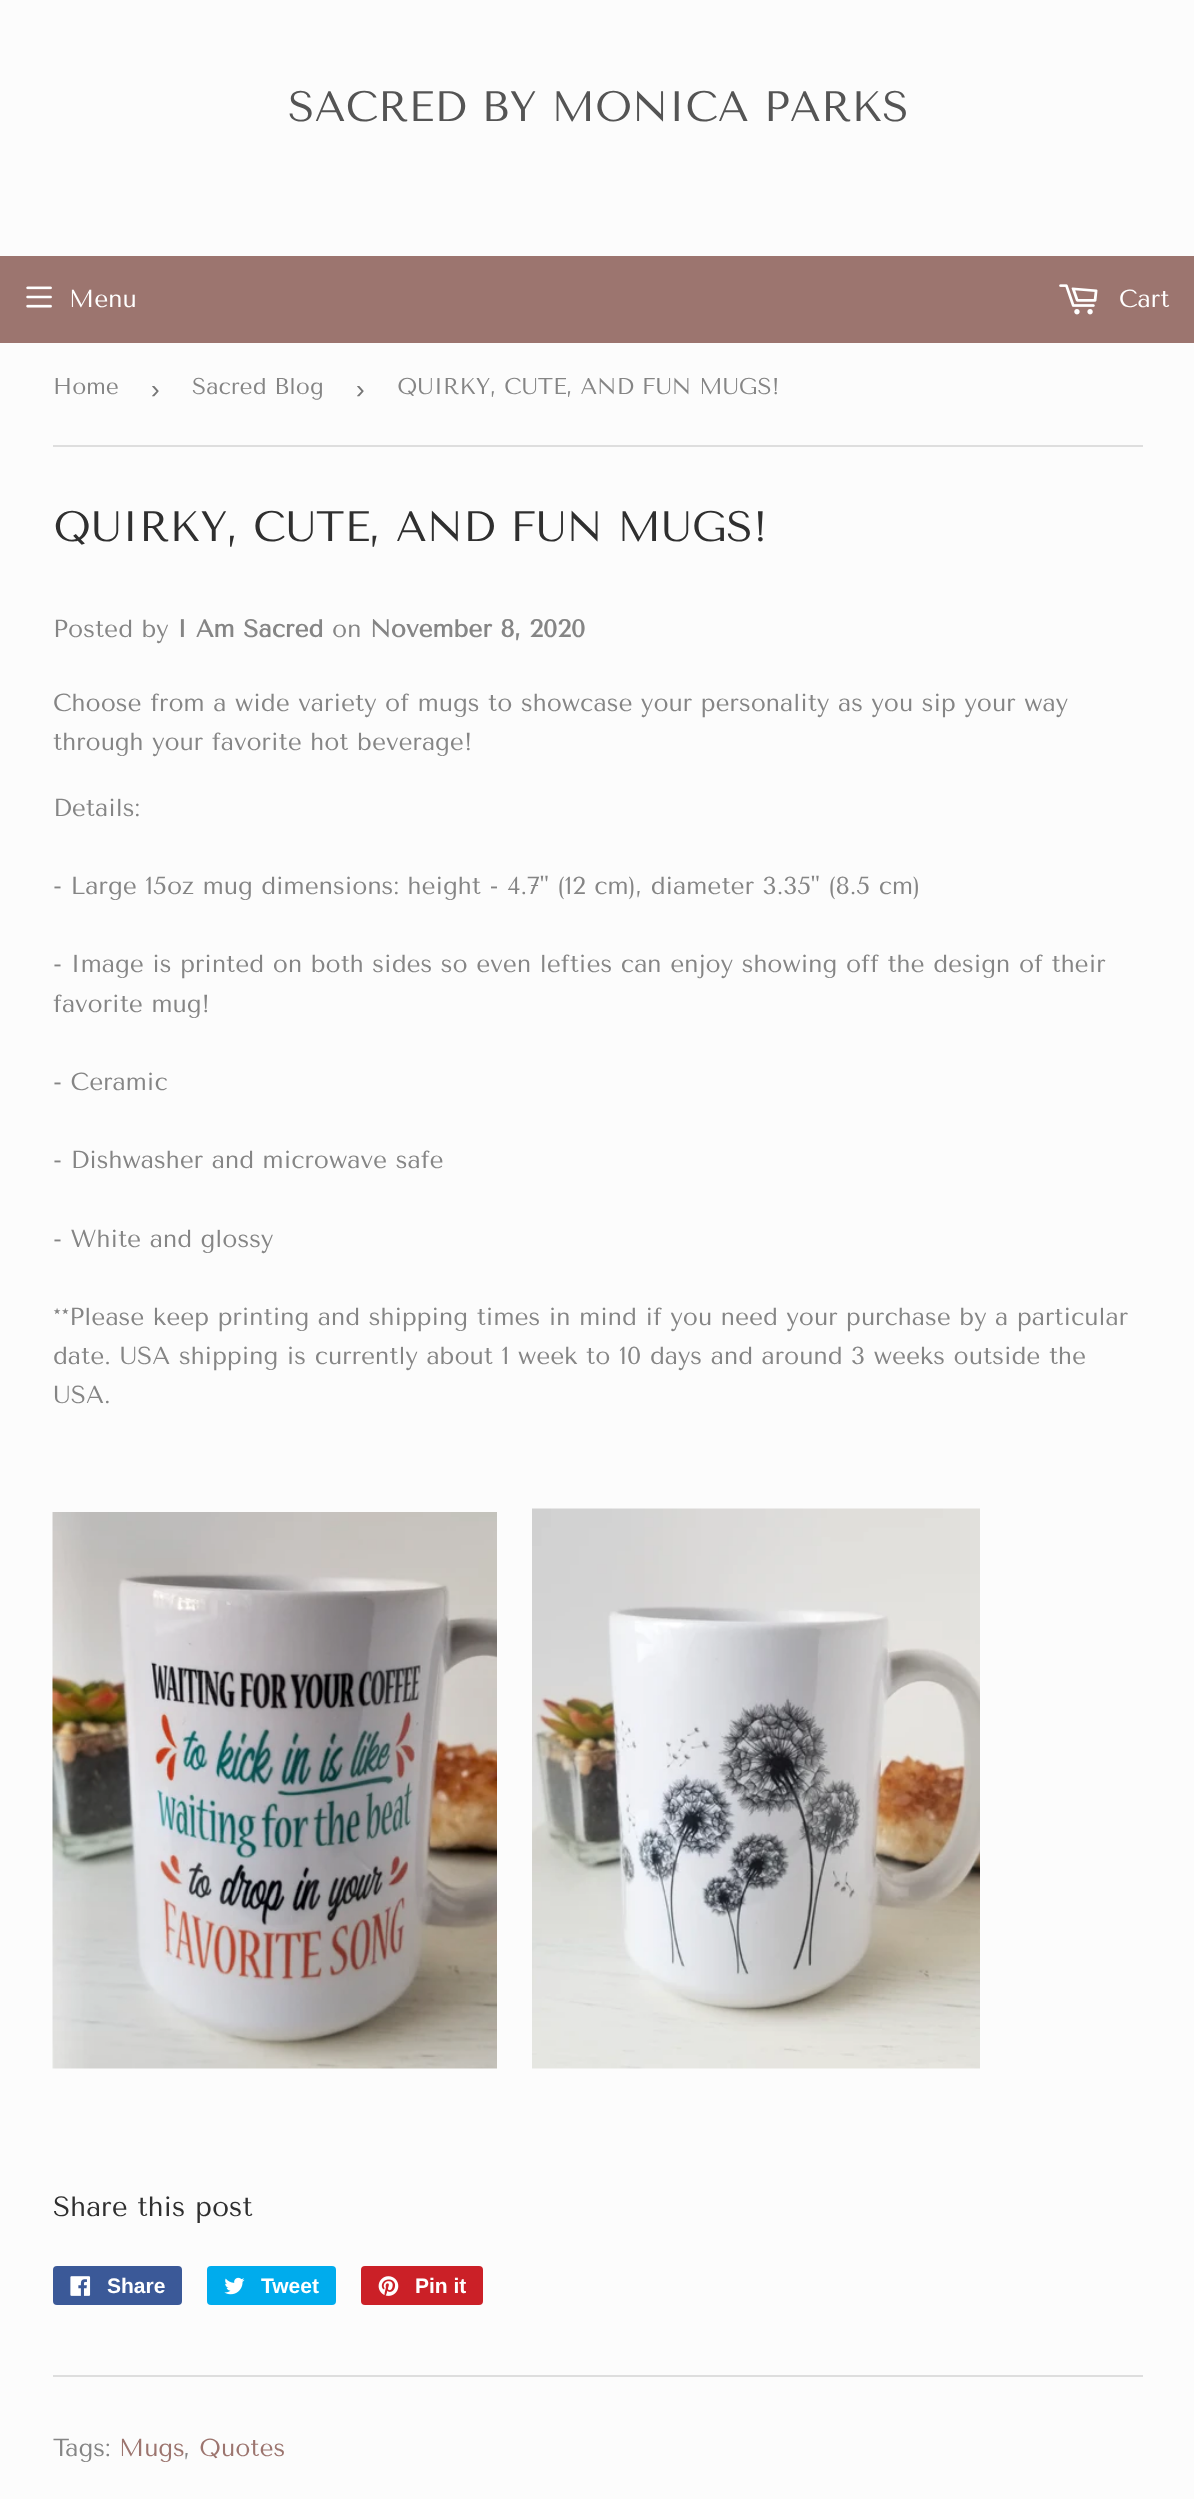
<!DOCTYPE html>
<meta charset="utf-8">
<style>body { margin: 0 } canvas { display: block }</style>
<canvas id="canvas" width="1194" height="2499"></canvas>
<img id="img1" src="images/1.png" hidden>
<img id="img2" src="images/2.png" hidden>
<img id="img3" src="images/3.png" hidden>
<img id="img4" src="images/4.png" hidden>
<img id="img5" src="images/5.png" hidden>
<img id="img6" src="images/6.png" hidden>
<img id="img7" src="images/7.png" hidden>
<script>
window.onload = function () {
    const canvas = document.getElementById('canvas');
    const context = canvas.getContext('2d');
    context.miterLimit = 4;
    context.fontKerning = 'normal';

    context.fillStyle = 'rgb(252, 252, 252)';
    context.fillRect(0, 0, 1194, 2499);
    context.fillStyle = 'rgb(156, 117, 111)';
    context.fillRect(0, 256, 1194, 87);
    context.drawImage(document.getElementById('img1'), 26, 286, 26, 22);
    context.drawImage(document.getElementById('img2'), 1059, 284, 39, 31);
    context.fillStyle = 'rgb(222, 222, 222)';
    context.fillRect(53, 445, 1090, 2);
    context.drawImage(document.getElementById('img3'), 52, 1512, 445, 557);
    context.drawImage(document.getElementById('img4'), 532, 1508, 448, 561);
    context.fillStyle = 'rgb(59, 89, 152)';
    context.beginPath();
    context.roundRect(53, 2266, 129, 39, 4);
    context.fill();
    context.drawImage(document.getElementById('img5'), 70, 2276, 21, 20);
    context.fillStyle = 'rgb(0, 172, 237)';
    context.beginPath();
    context.roundRect(207, 2266, 129, 39, 4);
    context.fill();
    context.drawImage(document.getElementById('img6'), 224, 2277, 21, 18);
    context.fillStyle = 'rgb(203, 32, 39)';
    context.beginPath();
    context.roundRect(361, 2266, 122, 39, 4);
    context.fill();
    context.drawImage(document.getElementById('img7'), 378, 2276, 21, 20);
    context.fillStyle = 'rgb(222, 222, 222)';
    context.fillRect(53, 2375, 1090, 2);
    context.font = '42.5px Tenor Sans';
    context.fillStyle = 'rgb(84, 84, 84)';
    context.fillText('SACRED BY MONICA PARKS', 288, 121);
    context.font = '24.5px Tenor Sans';
    context.fillStyle = 'rgb(255, 255, 255)';
    context.fillText('Menu', 69, 307);
    context.fillText('Cart', 1119, 307);
    context.font = '22.75px Tenor Sans';
    context.fillStyle = 'rgb(133, 133, 133)';
    context.fillText('Home', 53, 394);
    context.font = '26px Liberation Sans';
    context.fillStyle = 'rgb(118, 118, 118)';
    context.fillText('›', 151, 398);
    context.font = '22.75px Tenor Sans';
    context.fillStyle = 'rgb(133, 133, 133)';
    context.fillText('Sacred Blog', 192, 394);
    context.font = '26px Liberation Sans';
    context.fillStyle = 'rgb(118, 118, 118)';
    context.fillText('›', 356, 398);
    context.font = '22.75px Tenor Sans';
    context.fillStyle = 'rgb(133, 133, 133)';
    context.fillText('QUIRKY, CUTE, AND FUN MUGS!', 397, 394);
    context.font = '42.5px Tenor Sans';
    context.fillStyle = 'rgb(47, 47, 47)';
    context.fillText('QUIRKY, CUTE, AND FUN MUGS!', 53, 541);
    context.font = '24.5px Tenor Sans';
    context.fillStyle = 'rgb(133, 133, 133)';
    context.fillText('Posted by', 53, 637);
    context.font = 'bold 24.5px Tenor Sans';
    context.fillText('I Am Sacred', 177, 637);
    context.font = '24.5px Tenor Sans';
    context.fillText('on', 332, 637);
    context.font = 'bold 24.5px Tenor Sans';
    context.fillText('November 8, 2020', 370, 637);
    context.font = '24.5px Tenor Sans';
    context.fillText('Choose from a wide variety of mugs to showcase your personality as you sip your way', 53, 711);
    context.fillText('through your favorite hot beverage!', 53, 750);
    context.fillText('Details:', 53, 816);
    context.fillText('- Large 15oz mug dimensions: height - 4.7" (12 cm), diameter 3.35" (8.5 cm)', 53, 894);
    context.fillText('- Image is printed on both sides so even lefties can enjoy showing off the design of their', 53, 972);
    context.fillText('favorite mug!', 53, 1012);
    context.fillText('- Ceramic', 53, 1090);
    context.fillText('- Dishwasher and microwave safe', 53, 1168);
    context.fillText('- White and glossy', 53, 1247);
    context.fillText('**Please keep printing and shipping times in mind if you need your purchase by a particular', 53, 1325);
    context.fillText('date. USA shipping is currently about 1 week to 10 days and around 3 weeks outside the', 53, 1364);
    context.fillText('USA.', 53, 1403);
    context.font = '27.75px Tenor Sans';
    context.fillStyle = 'rgb(47, 47, 47)';
    context.fillText('Share this post', 53, 2216);
    context.font = 'bold 21px Liberation Sans';
    context.fillStyle = 'rgb(255, 255, 255)';
    context.fillText('Share', 107, 2293);
    context.fillText('Tweet', 261, 2293);
    context.fillText('Pin it', 415, 2293);
    context.font = '24.5px Tenor Sans';
    context.fillStyle = 'rgb(133, 133, 133)';
    context.fillText('Tags:', 53, 2456);
    context.fillStyle = 'rgb(156, 117, 111)';
    context.fillText('Mugs', 119, 2456);
    context.fillStyle = 'rgb(133, 133, 133)';
    context.fillText(',', 184, 2456);
    context.fillStyle = 'rgb(156, 117, 111)';
    context.fillText('Quotes', 199, 2456);
};
</script>
